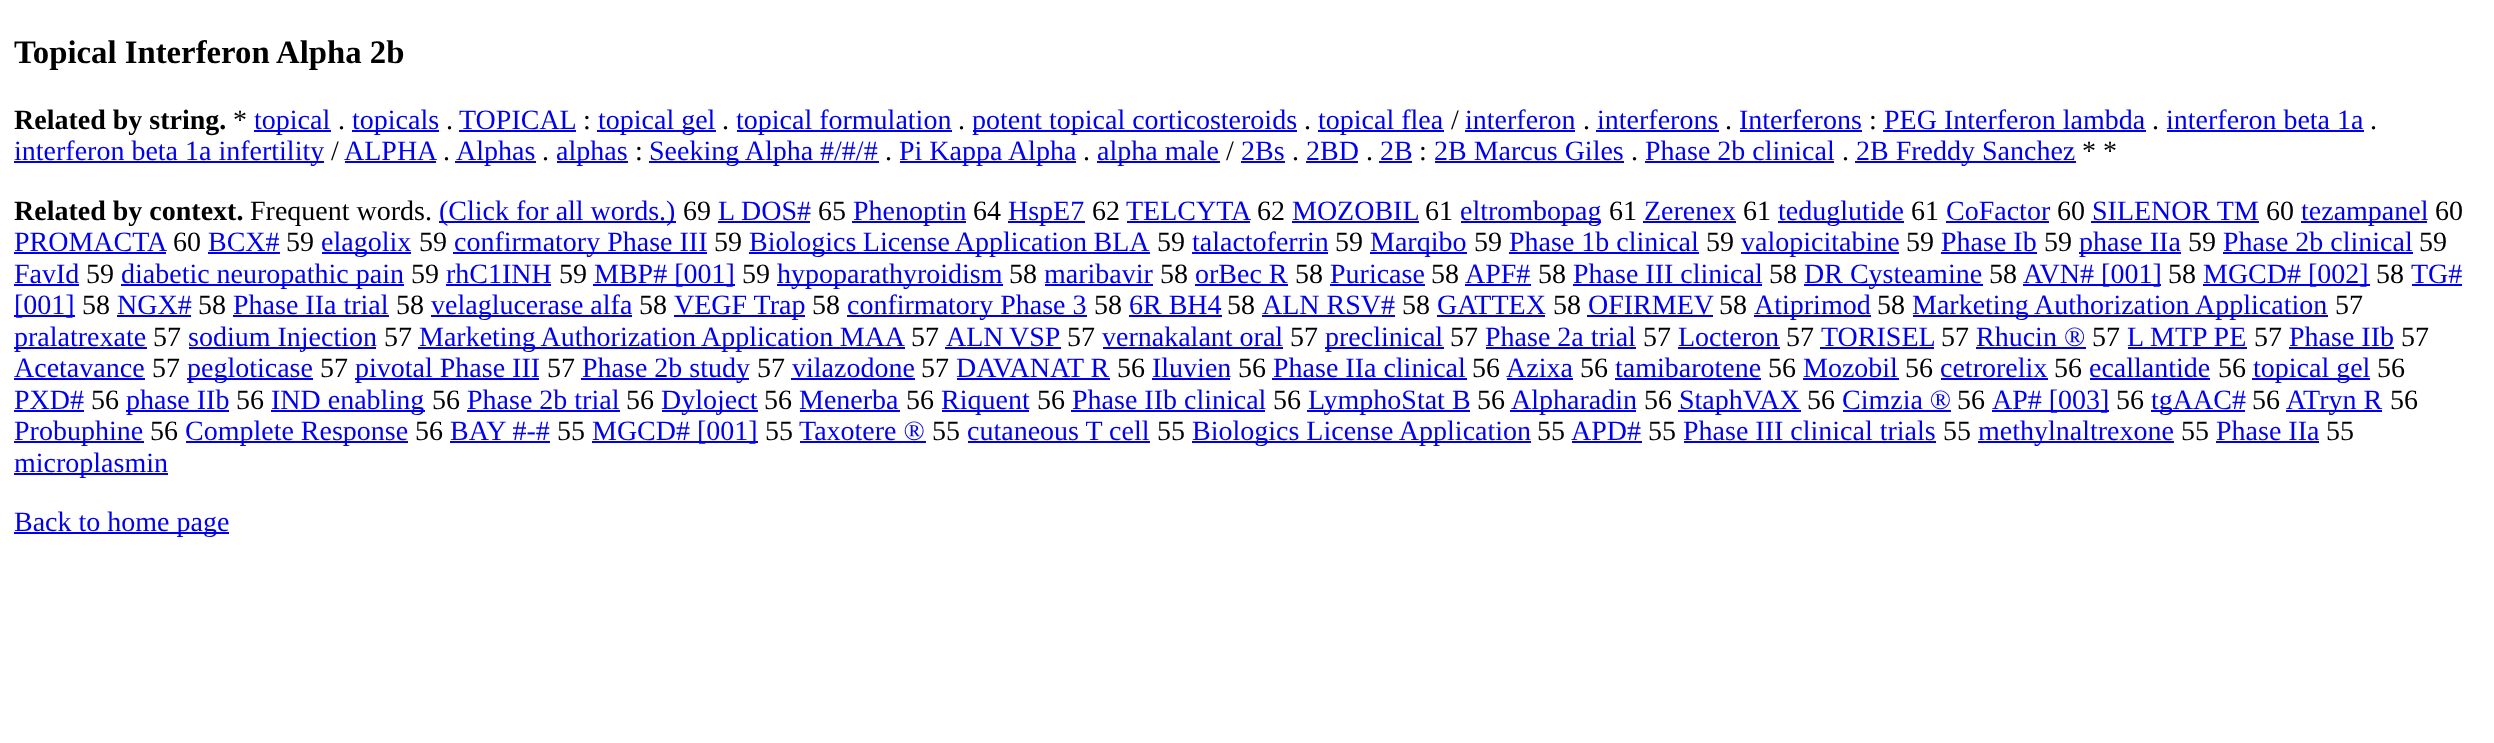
<!DOCTYPE html>
<meta charset="utf-8">
<style>body { margin: 0 } canvas { display: block }</style>
<canvas id="canvas" width="2494" height="743"></canvas>
<script>
window.onload = function () {
    const canvas = document.getElementById('canvas');
    const context = canvas.getContext('2d');
    context.miterLimit = 4;
    context.fontKerning = 'normal';

    context.fillStyle = 'rgb(255, 255, 255)';
    context.fillRect(0, 0, 2494, 743);
    context.fillStyle = 'rgb(0, 0, 238)';
    context.fillRect(254, 130, 77, 2);
    context.fillRect(352, 130, 87, 2);
    context.fillRect(459, 130, 117, 2);
    context.fillRect(597, 130, 119, 2);
    context.fillRect(737, 130, 215, 2);
    context.fillRect(973, 130, 324, 2);
    context.fillRect(1318, 130, 126, 2);
    context.fillRect(1465, 130, 110, 2);
    context.fillRect(1596, 130, 123, 2);
    context.fillRect(1740, 130, 122, 2);
    context.fillRect(1883, 130, 263, 2);
    context.fillRect(2167, 130, 197, 2);
    context.fillRect(14, 161, 310, 2);
    context.fillRect(345, 161, 91, 2);
    context.fillRect(455, 161, 81, 2);
    context.fillRect(557, 161, 71, 2);
    context.fillRect(649, 161, 230, 2);
    context.fillRect(900, 161, 176, 2);
    context.fillRect(1097, 161, 123, 2);
    context.fillRect(1241, 161, 44, 2);
    context.fillRect(1306, 161, 52, 2);
    context.fillRect(1379, 161, 33, 2);
    context.fillRect(1435, 161, 189, 2);
    context.fillRect(1645, 161, 189, 2);
    context.fillRect(1855, 161, 221, 2);
    context.fillRect(439, 221, 237, 2);
    context.fillRect(718, 221, 92, 2);
    context.fillRect(852, 221, 114, 2);
    context.fillRect(1008, 221, 77, 2);
    context.fillRect(1127, 221, 123, 2);
    context.fillRect(1292, 221, 127, 2);
    context.fillRect(1461, 221, 140, 2);
    context.fillRect(1643, 221, 93, 2);
    context.fillRect(1778, 221, 126, 2);
    context.fillRect(1946, 221, 103, 2);
    context.fillRect(2091, 221, 168, 2);
    context.fillRect(2301, 221, 126, 2);
    context.fillRect(14, 252, 152, 2);
    context.fillRect(208, 252, 72, 2);
    context.fillRect(322, 252, 89, 2);
    context.fillRect(453, 252, 254, 2);
    context.fillRect(749, 252, 401, 2);
    context.fillRect(1192, 252, 136, 2);
    context.fillRect(1370, 252, 97, 2);
    context.fillRect(1509, 252, 190, 2);
    context.fillRect(1741, 252, 158, 2);
    context.fillRect(1941, 252, 96, 2);
    context.fillRect(2079, 252, 102, 2);
    context.fillRect(2223, 252, 190, 2);
    context.fillRect(14, 284, 65, 2);
    context.fillRect(121, 284, 283, 2);
    context.fillRect(446, 284, 105, 2);
    context.fillRect(593, 284, 142, 2);
    context.fillRect(777, 284, 226, 2);
    context.fillRect(1045, 284, 108, 2);
    context.fillRect(1195, 284, 93, 2);
    context.fillRect(1330, 284, 95, 2);
    context.fillRect(1465, 284, 66, 2);
    context.fillRect(1573, 284, 189, 2);
    context.fillRect(1804, 284, 179, 2);
    context.fillRect(2023, 284, 138, 2);
    context.fillRect(2203, 284, 167, 2);
    context.fillRect(2412, 284, 50, 2);
    context.fillRect(14, 315, 61, 2);
    context.fillRect(117, 315, 74, 2);
    context.fillRect(233, 315, 156, 2);
    context.fillRect(431, 315, 201, 2);
    context.fillRect(674, 315, 131, 2);
    context.fillRect(847, 315, 240, 2);
    context.fillRect(1129, 315, 93, 2);
    context.fillRect(1262, 315, 133, 2);
    context.fillRect(1437, 315, 108, 2);
    context.fillRect(1587, 315, 126, 2);
    context.fillRect(1754, 315, 117, 2);
    context.fillRect(1913, 315, 415, 2);
    context.fillRect(14, 347, 133, 2);
    context.fillRect(189, 347, 187, 2);
    context.fillRect(418, 347, 487, 2);
    context.fillRect(945, 347, 116, 2);
    context.fillRect(1103, 347, 180, 2);
    context.fillRect(1325, 347, 119, 2);
    context.fillRect(1486, 347, 150, 2);
    context.fillRect(1678, 347, 102, 2);
    context.fillRect(1820, 347, 114, 2);
    context.fillRect(1976, 347, 110, 2);
    context.fillRect(2128, 347, 119, 2);
    context.fillRect(2289, 347, 105, 2);
    context.fillRect(14, 378, 131, 2);
    context.fillRect(187, 378, 126, 2);
    context.fillRect(355, 378, 184, 2);
    context.fillRect(581, 378, 168, 2);
    context.fillRect(791, 378, 124, 2);
    context.fillRect(957, 378, 153, 2);
    context.fillRect(1152, 378, 78, 2);
    context.fillRect(1272, 378, 195, 2);
    context.fillRect(1507, 378, 66, 2);
    context.fillRect(1615, 378, 146, 2);
    context.fillRect(1803, 378, 96, 2);
    context.fillRect(1941, 378, 107, 2);
    context.fillRect(2090, 378, 120, 2);
    context.fillRect(2252, 378, 118, 2);
    context.fillRect(14, 410, 70, 2);
    context.fillRect(126, 410, 103, 2);
    context.fillRect(271, 410, 154, 2);
    context.fillRect(467, 410, 153, 2);
    context.fillRect(662, 410, 96, 2);
    context.fillRect(800, 410, 100, 2);
    context.fillRect(942, 410, 87, 2);
    context.fillRect(1071, 410, 194, 2);
    context.fillRect(1307, 410, 163, 2);
    context.fillRect(1510, 410, 126, 2);
    context.fillRect(1678, 410, 123, 2);
    context.fillRect(1843, 410, 108, 2);
    context.fillRect(1992, 410, 117, 2);
    context.fillRect(2151, 410, 94, 2);
    context.fillRect(2286, 410, 96, 2);
    context.fillRect(14, 441, 130, 2);
    context.fillRect(186, 441, 222, 2);
    context.fillRect(450, 441, 100, 2);
    context.fillRect(592, 441, 166, 2);
    context.fillRect(800, 441, 126, 2);
    context.fillRect(968, 441, 182, 2);
    context.fillRect(1192, 441, 339, 2);
    context.fillRect(1572, 441, 70, 2);
    context.fillRect(1684, 441, 252, 2);
    context.fillRect(1978, 441, 196, 2);
    context.fillRect(2216, 441, 103, 2);
    context.fillRect(14, 473, 154, 2);
    context.fillRect(14, 532, 215, 2);
    context.font = 'bold 32.75px Liberation Serif';
    context.fillStyle = 'rgb(0, 0, 0)';
    context.fillText('Topical Interferon Alpha 2b', 14, 63);
    context.font = 'bold 28px Liberation Serif';
    context.fillText('Related by string.', 14, 129);
    context.font = '28px Liberation Serif';
    context.fillText('*', 233, 129);
    context.fillStyle = 'rgb(0, 0, 238)';
    context.fillText('topical', 254, 129);
    context.fillStyle = 'rgb(0, 0, 0)';
    context.fillText('.', 338, 129);
    context.fillStyle = 'rgb(0, 0, 238)';
    context.fillText('topicals', 352, 129);
    context.fillStyle = 'rgb(0, 0, 0)';
    context.fillText('.', 446, 129);
    context.fillStyle = 'rgb(0, 0, 238)';
    context.fillText('TOPICAL', 459, 129);
    context.fillStyle = 'rgb(0, 0, 0)';
    context.fillText(':', 583, 129);
    context.fillStyle = 'rgb(0, 0, 238)';
    context.fillText('topical gel', 598, 129);
    context.fillStyle = 'rgb(0, 0, 0)';
    context.fillText('.', 722, 129);
    context.fillStyle = 'rgb(0, 0, 238)';
    context.fillText('topical formulation', 736, 129);
    context.fillStyle = 'rgb(0, 0, 0)';
    context.fillText('.', 958, 129);
    context.fillStyle = 'rgb(0, 0, 238)';
    context.fillText('potent topical corticosteroids', 972, 129);
    context.fillStyle = 'rgb(0, 0, 0)';
    context.fillText('.', 1304, 129);
    context.fillStyle = 'rgb(0, 0, 238)';
    context.fillText('topical flea', 1318, 129);
    context.fillStyle = 'rgb(0, 0, 0)';
    context.fillText('/', 1451, 129);
    context.fillStyle = 'rgb(0, 0, 238)';
    context.fillText('interferon', 1465, 129);
    context.fillStyle = 'rgb(0, 0, 0)';
    context.fillText('.', 1583, 129);
    context.fillStyle = 'rgb(0, 0, 238)';
    context.fillText('interferons', 1597, 129);
    context.fillStyle = 'rgb(0, 0, 0)';
    context.fillText('.', 1725, 129);
    context.fillStyle = 'rgb(0, 0, 238)';
    context.fillText('Interferons', 1739, 129);
    context.fillStyle = 'rgb(0, 0, 0)';
    context.fillText(':', 1869, 129);
    context.fillStyle = 'rgb(0, 0, 238)';
    context.fillText('PEG Interferon lambda', 1884, 129);
    context.fillStyle = 'rgb(0, 0, 0)';
    context.fillText('.', 2152, 129);
    context.fillStyle = 'rgb(0, 0, 238)';
    context.fillText('interferon beta 1a', 2166, 129);
    context.fillStyle = 'rgb(0, 0, 0)';
    context.fillText('.', 2370, 129);
    context.fillStyle = 'rgb(0, 0, 238)';
    context.fillText('interferon beta 1a infertility', 14, 160);
    context.fillStyle = 'rgb(0, 0, 0)';
    context.fillText('/', 331, 160);
    context.fillStyle = 'rgb(0, 0, 238)';
    context.fillText('ALPHA', 344, 160);
    context.fillStyle = 'rgb(0, 0, 0)';
    context.fillText('.', 443, 160);
    context.fillStyle = 'rgb(0, 0, 238)';
    context.fillText('Alphas', 456, 160);
    context.fillStyle = 'rgb(0, 0, 0)';
    context.fillText('.', 542, 160);
    context.fillStyle = 'rgb(0, 0, 238)';
    context.fillText('alphas', 556, 160);
    context.fillStyle = 'rgb(0, 0, 0)';
    context.fillText(':', 635, 160);
    context.fillStyle = 'rgb(0, 0, 238)';
    context.fillText('Seeking Alpha #/#/#', 649, 160);
    context.fillStyle = 'rgb(0, 0, 0)';
    context.fillText('.', 885, 160);
    context.fillStyle = 'rgb(0, 0, 238)';
    context.fillText('Pi Kappa Alpha', 899, 160);
    context.fillStyle = 'rgb(0, 0, 0)';
    context.fillText('.', 1083, 160);
    context.fillStyle = 'rgb(0, 0, 238)';
    context.fillText('alpha male', 1097, 160);
    context.fillStyle = 'rgb(0, 0, 0)';
    context.fillText('/', 1226, 160);
    context.fillStyle = 'rgb(0, 0, 238)';
    context.fillText('2Bs', 1241, 160);
    context.fillStyle = 'rgb(0, 0, 0)';
    context.fillText('.', 1292, 160);
    context.fillStyle = 'rgb(0, 0, 238)';
    context.fillText('2BD', 1306, 160);
    context.fillStyle = 'rgb(0, 0, 0)';
    context.fillText('.', 1366, 160);
    context.fillStyle = 'rgb(0, 0, 238)';
    context.fillText('2B', 1380, 160);
    context.fillStyle = 'rgb(0, 0, 0)';
    context.fillText(':', 1419, 160);
    context.fillStyle = 'rgb(0, 0, 238)';
    context.fillText('2B Marcus Giles', 1434, 160);
    context.fillStyle = 'rgb(0, 0, 0)';
    context.fillText('.', 1631, 160);
    context.fillStyle = 'rgb(0, 0, 238)';
    context.fillText('Phase 2b clinical', 1645, 160);
    context.fillStyle = 'rgb(0, 0, 0)';
    context.fillText('.', 1842, 160);
    context.fillStyle = 'rgb(0, 0, 238)';
    context.fillText('2B Freddy Sanchez', 1856, 160);
    context.fillStyle = 'rgb(0, 0, 0)';
    context.fillText('* *', 2082, 160);
    context.font = 'bold 28px Liberation Serif';
    context.fillText('Related by context.', 14, 220);
    context.font = '28px Liberation Serif';
    context.fillText('Frequent words.', 250, 220);
    context.fillStyle = 'rgb(0, 0, 238)';
    context.fillText('(Click for all words.)', 439, 220);
    context.fillStyle = 'rgb(0, 0, 0)';
    context.fillText('69', 683, 220);
    context.fillStyle = 'rgb(0, 0, 238)';
    context.fillText('L DOS#', 718, 220);
    context.fillStyle = 'rgb(0, 0, 0)';
    context.fillText('65', 818, 220);
    context.fillStyle = 'rgb(0, 0, 238)';
    context.fillText('Phenoptin', 853, 220);
    context.fillStyle = 'rgb(0, 0, 0)';
    context.fillText('64', 973, 220);
    context.fillStyle = 'rgb(0, 0, 238)';
    context.fillText('HspE7', 1008, 220);
    context.fillStyle = 'rgb(0, 0, 0)';
    context.fillText('62', 1092, 220);
    context.fillStyle = 'rgb(0, 0, 238)';
    context.fillText('TELCYTA', 1126, 220);
    context.fillStyle = 'rgb(0, 0, 0)';
    context.fillText('62', 1257, 220);
    context.fillStyle = 'rgb(0, 0, 238)';
    context.fillText('MOZOBIL', 1292, 220);
    context.fillStyle = 'rgb(0, 0, 0)';
    context.fillText('61', 1425, 220);
    context.fillStyle = 'rgb(0, 0, 238)';
    context.fillText('eltrombopag', 1460, 220);
    context.fillStyle = 'rgb(0, 0, 0)';
    context.fillText('61', 1609, 220);
    context.fillStyle = 'rgb(0, 0, 238)';
    context.fillText('Zerenex', 1644, 220);
    context.fillStyle = 'rgb(0, 0, 0)';
    context.fillText('61', 1743, 220);
    context.fillStyle = 'rgb(0, 0, 238)';
    context.fillText('teduglutide', 1778, 220);
    context.fillStyle = 'rgb(0, 0, 0)';
    context.fillText('61', 1911, 220);
    context.fillStyle = 'rgb(0, 0, 238)';
    context.fillText('CoFactor', 1946, 220);
    context.fillStyle = 'rgb(0, 0, 0)';
    context.fillText('60', 2057, 220);
    context.fillStyle = 'rgb(0, 0, 238)';
    context.fillText('SILENOR TM', 2092, 220);
    context.fillStyle = 'rgb(0, 0, 0)';
    context.fillText('60', 2266, 220);
    context.fillStyle = 'rgb(0, 0, 238)';
    context.fillText('tezampanel', 2301, 220);
    context.fillStyle = 'rgb(0, 0, 0)';
    context.fillText('60', 2435, 220);
    context.fillStyle = 'rgb(0, 0, 238)';
    context.fillText('PROMACTA', 14, 251);
    context.fillStyle = 'rgb(0, 0, 0)';
    context.fillText('60', 173, 251);
    context.fillStyle = 'rgb(0, 0, 238)';
    context.fillText('BCX#', 208, 251);
    context.fillStyle = 'rgb(0, 0, 0)';
    context.fillText('59', 286, 251);
    context.fillStyle = 'rgb(0, 0, 238)';
    context.fillText('elagolix', 321, 251);
    context.fillStyle = 'rgb(0, 0, 0)';
    context.fillText('59', 419, 251);
    context.fillStyle = 'rgb(0, 0, 238)';
    context.fillText('confirmatory Phase III', 454, 251);
    context.fillStyle = 'rgb(0, 0, 0)';
    context.fillText('59', 714, 251);
    context.wordSpacing = '-0.5px';
    context.fillStyle = 'rgb(0, 0, 238)';
    context.fillText('Biologics License Application BLA', 749, 251);
    context.wordSpacing = '0px';
    context.fillStyle = 'rgb(0, 0, 0)';
    context.fillText('59', 1157, 251);
    context.fillStyle = 'rgb(0, 0, 238)';
    context.fillText('talactoferrin', 1192, 251);
    context.fillStyle = 'rgb(0, 0, 0)';
    context.fillText('59', 1335, 251);
    context.fillStyle = 'rgb(0, 0, 238)';
    context.fillText('Marqibo', 1370, 251);
    context.fillStyle = 'rgb(0, 0, 0)';
    context.fillText('59', 1474, 251);
    context.fillStyle = 'rgb(0, 0, 238)';
    context.fillText('Phase 1b clinical', 1509, 251);
    context.fillStyle = 'rgb(0, 0, 0)';
    context.fillText('59', 1706, 251);
    context.fillStyle = 'rgb(0, 0, 238)';
    context.fillText('valopicitabine', 1741, 251);
    context.fillStyle = 'rgb(0, 0, 0)';
    context.fillText('59', 1906, 251);
    context.fillStyle = 'rgb(0, 0, 238)';
    context.fillText('Phase Ib', 1941, 251);
    context.fillStyle = 'rgb(0, 0, 0)';
    context.fillText('59', 2044, 251);
    context.fillStyle = 'rgb(0, 0, 238)';
    context.fillText('phase IIa', 2079, 251);
    context.fillStyle = 'rgb(0, 0, 0)';
    context.fillText('59', 2188, 251);
    context.fillStyle = 'rgb(0, 0, 238)';
    context.fillText('Phase 2b clinical', 2223, 251);
    context.fillStyle = 'rgb(0, 0, 0)';
    context.fillText('59', 2419, 251);
    context.fillStyle = 'rgb(0, 0, 238)';
    context.fillText('FavId', 14, 283);
    context.fillStyle = 'rgb(0, 0, 0)';
    context.fillText('59', 86, 283);
    context.fillStyle = 'rgb(0, 0, 238)';
    context.fillText('diabetic neuropathic pain', 121, 283);
    context.fillStyle = 'rgb(0, 0, 0)';
    context.fillText('59', 411, 283);
    context.fillStyle = 'rgb(0, 0, 238)';
    context.fillText('rhC1INH', 446, 283);
    context.fillStyle = 'rgb(0, 0, 0)';
    context.fillText('59', 559, 283);
    context.fillStyle = 'rgb(0, 0, 238)';
    context.fillText('MBP# [001]', 594, 283);
    context.fillStyle = 'rgb(0, 0, 0)';
    context.fillText('59', 742, 283);
    context.fillStyle = 'rgb(0, 0, 238)';
    context.fillText('hypoparathyroidism', 777, 283);
    context.fillStyle = 'rgb(0, 0, 0)';
    context.fillText('58', 1009, 283);
    context.fillStyle = 'rgb(0, 0, 238)';
    context.fillText('maribavir', 1044, 283);
    context.fillStyle = 'rgb(0, 0, 0)';
    context.fillText('58', 1160, 283);
    context.fillStyle = 'rgb(0, 0, 238)';
    context.fillText('orBec R', 1195, 283);
    context.fillStyle = 'rgb(0, 0, 0)';
    context.fillText('58', 1295, 283);
    context.fillStyle = 'rgb(0, 0, 238)';
    context.fillText('Puricase', 1330, 283);
    context.fillStyle = 'rgb(0, 0, 0)';
    context.fillText('58', 1431, 283);
    context.fillStyle = 'rgb(0, 0, 238)';
    context.fillText('APF#', 1465, 283);
    context.fillStyle = 'rgb(0, 0, 0)';
    context.fillText('58', 1538, 283);
    context.fillStyle = 'rgb(0, 0, 238)';
    context.fillText('Phase III clinical', 1573, 283);
    context.fillStyle = 'rgb(0, 0, 0)';
    context.fillText('58', 1769, 283);
    context.fillStyle = 'rgb(0, 0, 238)';
    context.fillText('DR Cysteamine', 1804, 283);
    context.fillStyle = 'rgb(0, 0, 0)';
    context.fillText('58', 1989, 283);
    context.fillStyle = 'rgb(0, 0, 238)';
    context.fillText('AVN# [001]', 2023, 283);
    context.fillStyle = 'rgb(0, 0, 0)';
    context.fillText('58', 2168, 283);
    context.fillStyle = 'rgb(0, 0, 238)';
    context.fillText('MGCD# [002]', 2203, 283);
    context.fillStyle = 'rgb(0, 0, 0)';
    context.fillText('58', 2376, 283);
    context.fillStyle = 'rgb(0, 0, 238)';
    context.fillText('TG#', 2411, 283);
    context.fillText('[001]', 14, 314);
    context.fillStyle = 'rgb(0, 0, 0)';
    context.fillText('58', 82, 314);
    context.fillStyle = 'rgb(0, 0, 238)';
    context.fillText('NGX#', 117, 314);
    context.fillStyle = 'rgb(0, 0, 0)';
    context.fillText('58', 198, 314);
    context.fillStyle = 'rgb(0, 0, 238)';
    context.fillText('Phase IIa trial', 233, 314);
    context.fillStyle = 'rgb(0, 0, 0)';
    context.fillText('58', 396, 314);
    context.fillStyle = 'rgb(0, 0, 238)';
    context.fillText('velaglucerase alfa', 431, 314);
    context.fillStyle = 'rgb(0, 0, 0)';
    context.fillText('58', 639, 314);
    context.fillStyle = 'rgb(0, 0, 238)';
    context.fillText('VEGF Trap', 674, 314);
    context.fillStyle = 'rgb(0, 0, 0)';
    context.fillText('58', 812, 314);
    context.fillStyle = 'rgb(0, 0, 238)';
    context.fillText('confirmatory Phase 3', 847, 314);
    context.fillStyle = 'rgb(0, 0, 0)';
    context.fillText('58', 1094, 314);
    context.fillStyle = 'rgb(0, 0, 238)';
    context.fillText('6R BH4', 1129, 314);
    context.fillStyle = 'rgb(0, 0, 0)';
    context.fillText('58', 1227, 314);
    context.fillStyle = 'rgb(0, 0, 238)';
    context.fillText('ALN RSV#', 1262, 314);
    context.fillStyle = 'rgb(0, 0, 0)';
    context.fillText('58', 1402, 314);
    context.fillStyle = 'rgb(0, 0, 238)';
    context.fillText('GATTEX', 1437, 314);
    context.fillStyle = 'rgb(0, 0, 0)';
    context.fillText('58', 1553, 314);
    context.fillStyle = 'rgb(0, 0, 238)';
    context.fillText('OFIRMEV', 1588, 314);
    context.fillStyle = 'rgb(0, 0, 0)';
    context.fillText('58', 1719, 314);
    context.fillStyle = 'rgb(0, 0, 238)';
    context.fillText('Atiprimod', 1754, 314);
    context.fillStyle = 'rgb(0, 0, 0)';
    context.fillText('58', 1877, 314);
    context.fillStyle = 'rgb(0, 0, 238)';
    context.fillText('Marketing Authorization Application', 1912, 314);
    context.fillStyle = 'rgb(0, 0, 0)';
    context.fillText('57', 2335, 314);
    context.fillStyle = 'rgb(0, 0, 238)';
    context.fillText('pralatrexate', 14, 346);
    context.fillStyle = 'rgb(0, 0, 0)';
    context.fillText('57', 153, 346);
    context.fillStyle = 'rgb(0, 0, 238)';
    context.fillText('sodium Injection', 188, 346);
    context.fillStyle = 'rgb(0, 0, 0)';
    context.fillText('57', 384, 346);
    context.wordSpacing = '-0.5px';
    context.fillStyle = 'rgb(0, 0, 238)';
    context.fillText('Marketing Authorization Application MAA', 419, 346);
    context.wordSpacing = '0px';
    context.fillStyle = 'rgb(0, 0, 0)';
    context.fillText('57', 911, 346);
    context.wordSpacing = '-1px';
    context.fillStyle = 'rgb(0, 0, 238)';
    context.fillText('ALN VSP', 946, 346);
    context.wordSpacing = '0px';
    context.fillStyle = 'rgb(0, 0, 0)';
    context.fillText('57', 1067, 346);
    context.fillStyle = 'rgb(0, 0, 238)';
    context.fillText('vernakalant oral', 1102, 346);
    context.fillStyle = 'rgb(0, 0, 0)';
    context.fillText('57', 1290, 346);
    context.fillStyle = 'rgb(0, 0, 238)';
    context.fillText('preclinical', 1325, 346);
    context.fillStyle = 'rgb(0, 0, 0)';
    context.fillText('57', 1450, 346);
    context.fillStyle = 'rgb(0, 0, 238)';
    context.fillText('Phase 2a trial', 1485, 346);
    context.fillStyle = 'rgb(0, 0, 0)';
    context.fillText('57', 1643, 346);
    context.fillStyle = 'rgb(0, 0, 238)';
    context.fillText('Locteron', 1678, 346);
    context.fillStyle = 'rgb(0, 0, 0)';
    context.fillText('57', 1786, 346);
    context.fillStyle = 'rgb(0, 0, 238)';
    context.fillText('TORISEL', 1821, 346);
    context.fillStyle = 'rgb(0, 0, 0)';
    context.fillText('57', 1941, 346);
    context.fillStyle = 'rgb(0, 0, 238)';
    context.fillText('Rhucin ®', 1976, 346);
    context.fillStyle = 'rgb(0, 0, 0)';
    context.fillText('57', 2092, 346);
    context.fillStyle = 'rgb(0, 0, 238)';
    context.fillText('L MTP PE', 2127, 346);
    context.fillStyle = 'rgb(0, 0, 0)';
    context.fillText('57', 2254, 346);
    context.fillStyle = 'rgb(0, 0, 238)';
    context.fillText('Phase IIb', 2289, 346);
    context.fillStyle = 'rgb(0, 0, 0)';
    context.fillText('57', 2401, 346);
    context.fillStyle = 'rgb(0, 0, 238)';
    context.fillText('Acetavance', 14, 377);
    context.fillStyle = 'rgb(0, 0, 0)';
    context.fillText('57', 152, 377);
    context.fillStyle = 'rgb(0, 0, 238)';
    context.fillText('pegloticase', 187, 377);
    context.fillStyle = 'rgb(0, 0, 0)';
    context.fillText('57', 320, 377);
    context.fillStyle = 'rgb(0, 0, 238)';
    context.fillText('pivotal Phase III', 355, 377);
    context.fillStyle = 'rgb(0, 0, 0)';
    context.fillText('57', 547, 377);
    context.fillStyle = 'rgb(0, 0, 238)';
    context.fillText('Phase 2b study', 582, 377);
    context.fillStyle = 'rgb(0, 0, 0)';
    context.fillText('57', 757, 377);
    context.fillStyle = 'rgb(0, 0, 238)';
    context.fillText('vilazodone', 792, 377);
    context.fillStyle = 'rgb(0, 0, 0)';
    context.fillText('57', 921, 377);
    context.fillStyle = 'rgb(0, 0, 238)';
    context.fillText('DAVANAT R', 956, 377);
    context.fillStyle = 'rgb(0, 0, 0)';
    context.fillText('56', 1117, 377);
    context.fillStyle = 'rgb(0, 0, 238)';
    context.fillText('Iluvien', 1152, 377);
    context.fillStyle = 'rgb(0, 0, 0)';
    context.fillText('56', 1238, 377);
    context.fillStyle = 'rgb(0, 0, 238)';
    context.fillText('Phase IIa clinical', 1273, 377);
    context.fillStyle = 'rgb(0, 0, 0)';
    context.fillText('56', 1472, 377);
    context.fillStyle = 'rgb(0, 0, 238)';
    context.fillText('Azixa', 1506, 377);
    context.fillStyle = 'rgb(0, 0, 0)';
    context.fillText('56', 1580, 377);
    context.fillStyle = 'rgb(0, 0, 238)';
    context.fillText('tamibarotene', 1615, 377);
    context.fillStyle = 'rgb(0, 0, 0)';
    context.fillText('56', 1768, 377);
    context.fillStyle = 'rgb(0, 0, 238)';
    context.fillText('Mozobil', 1803, 377);
    context.fillStyle = 'rgb(0, 0, 0)';
    context.fillText('56', 1905, 377);
    context.fillStyle = 'rgb(0, 0, 238)';
    context.fillText('cetrorelix', 1940, 377);
    context.fillStyle = 'rgb(0, 0, 0)';
    context.fillText('56', 2054, 377);
    context.fillStyle = 'rgb(0, 0, 238)';
    context.fillText('ecallantide', 2089, 377);
    context.fillStyle = 'rgb(0, 0, 0)';
    context.fillText('56', 2218, 377);
    context.fillStyle = 'rgb(0, 0, 238)';
    context.fillText('topical gel', 2253, 377);
    context.fillStyle = 'rgb(0, 0, 0)';
    context.fillText('56', 2377, 377);
    context.fillStyle = 'rgb(0, 0, 238)';
    context.fillText('PXD#', 14, 409);
    context.fillStyle = 'rgb(0, 0, 0)';
    context.fillText('56', 91, 409);
    context.fillStyle = 'rgb(0, 0, 238)';
    context.fillText('phase IIb', 126, 409);
    context.fillStyle = 'rgb(0, 0, 0)';
    context.fillText('56', 236, 409);
    context.fillStyle = 'rgb(0, 0, 238)';
    context.fillText('IND enabling', 271, 409);
    context.fillStyle = 'rgb(0, 0, 0)';
    context.fillText('56', 432, 409);
    context.fillStyle = 'rgb(0, 0, 238)';
    context.fillText('Phase 2b trial', 467, 409);
    context.fillStyle = 'rgb(0, 0, 0)';
    context.fillText('56', 626, 409);
    context.fillStyle = 'rgb(0, 0, 238)';
    context.fillText('Dyloject', 661, 409);
    context.fillStyle = 'rgb(0, 0, 0)';
    context.fillText('56', 764, 409);
    context.fillStyle = 'rgb(0, 0, 238)';
    context.fillText('Menerba', 799, 409);
    context.fillStyle = 'rgb(0, 0, 0)';
    context.fillText('56', 906, 409);
    context.fillStyle = 'rgb(0, 0, 238)';
    context.fillText('Riquent', 941, 409);
    context.fillStyle = 'rgb(0, 0, 0)';
    context.fillText('56', 1037, 409);
    context.fillStyle = 'rgb(0, 0, 238)';
    context.fillText('Phase IIb clinical', 1072, 409);
    context.fillStyle = 'rgb(0, 0, 0)';
    context.fillText('56', 1273, 409);
    context.fillStyle = 'rgb(0, 0, 238)';
    context.fillText('LymphoStat B', 1308, 409);
    context.fillStyle = 'rgb(0, 0, 0)';
    context.fillText('56', 1477, 409);
    context.fillStyle = 'rgb(0, 0, 238)';
    context.fillText('Alpharadin', 1511, 409);
    context.fillStyle = 'rgb(0, 0, 0)';
    context.fillText('56', 1644, 409);
    context.fillStyle = 'rgb(0, 0, 238)';
    context.fillText('StaphVAX', 1679, 409);
    context.fillStyle = 'rgb(0, 0, 0)';
    context.fillText('56', 1807, 409);
    context.fillStyle = 'rgb(0, 0, 238)';
    context.fillText('Cimzia ®', 1842, 409);
    context.fillStyle = 'rgb(0, 0, 0)';
    context.fillText('56', 1957, 409);
    context.fillStyle = 'rgb(0, 0, 238)';
    context.fillText('AP# [003]', 1992, 409);
    context.fillStyle = 'rgb(0, 0, 0)';
    context.fillText('56', 2116, 409);
    context.fillStyle = 'rgb(0, 0, 238)';
    context.fillText('tgAAC#', 2151, 409);
    context.fillStyle = 'rgb(0, 0, 0)';
    context.fillText('56', 2252, 409);
    context.fillStyle = 'rgb(0, 0, 238)';
    context.fillText('ATryn R', 2286, 409);
    context.fillStyle = 'rgb(0, 0, 0)';
    context.fillText('56', 2390, 409);
    context.fillStyle = 'rgb(0, 0, 238)';
    context.fillText('Probuphine', 14, 440);
    context.fillStyle = 'rgb(0, 0, 0)';
    context.fillText('56', 150, 440);
    context.fillStyle = 'rgb(0, 0, 238)';
    context.fillText('Complete Response', 185, 440);
    context.fillStyle = 'rgb(0, 0, 0)';
    context.fillText('56', 415, 440);
    context.fillStyle = 'rgb(0, 0, 238)';
    context.fillText('BAY #-#', 450, 440);
    context.fillStyle = 'rgb(0, 0, 0)';
    context.fillText('55', 557, 440);
    context.fillStyle = 'rgb(0, 0, 238)';
    context.fillText('MGCD# [001]', 592, 440);
    context.fillStyle = 'rgb(0, 0, 0)';
    context.fillText('55', 765, 440);
    context.fillStyle = 'rgb(0, 0, 238)';
    context.fillText('Taxotere ®', 799, 440);
    context.fillStyle = 'rgb(0, 0, 0)';
    context.fillText('55', 932, 440);
    context.fillStyle = 'rgb(0, 0, 238)';
    context.fillText('cutaneous T cell', 967, 440);
    context.fillStyle = 'rgb(0, 0, 0)';
    context.fillText('55', 1157, 440);
    context.fillStyle = 'rgb(0, 0, 238)';
    context.fillText('Biologics License Application', 1192, 440);
    context.fillStyle = 'rgb(0, 0, 0)';
    context.fillText('55', 1537, 440);
    context.fillStyle = 'rgb(0, 0, 238)';
    context.fillText('APD#', 1571, 440);
    context.fillStyle = 'rgb(0, 0, 0)';
    context.fillText('55', 1648, 440);
    context.fillStyle = 'rgb(0, 0, 238)';
    context.fillText('Phase III clinical trials', 1683, 440);
    context.fillStyle = 'rgb(0, 0, 0)';
    context.fillText('55', 1943, 440);
    context.fillStyle = 'rgb(0, 0, 238)';
    context.fillText('methylnaltrexone', 1978, 440);
    context.fillStyle = 'rgb(0, 0, 0)';
    context.fillText('55', 2181, 440);
    context.fillStyle = 'rgb(0, 0, 238)';
    context.fillText('Phase IIa', 2216, 440);
    context.fillStyle = 'rgb(0, 0, 0)';
    context.fillText('55', 2326, 440);
    context.fillStyle = 'rgb(0, 0, 238)';
    context.fillText('microplasmin', 14, 472);
    context.fillText('Back to home page', 14, 531);
};
</script>
